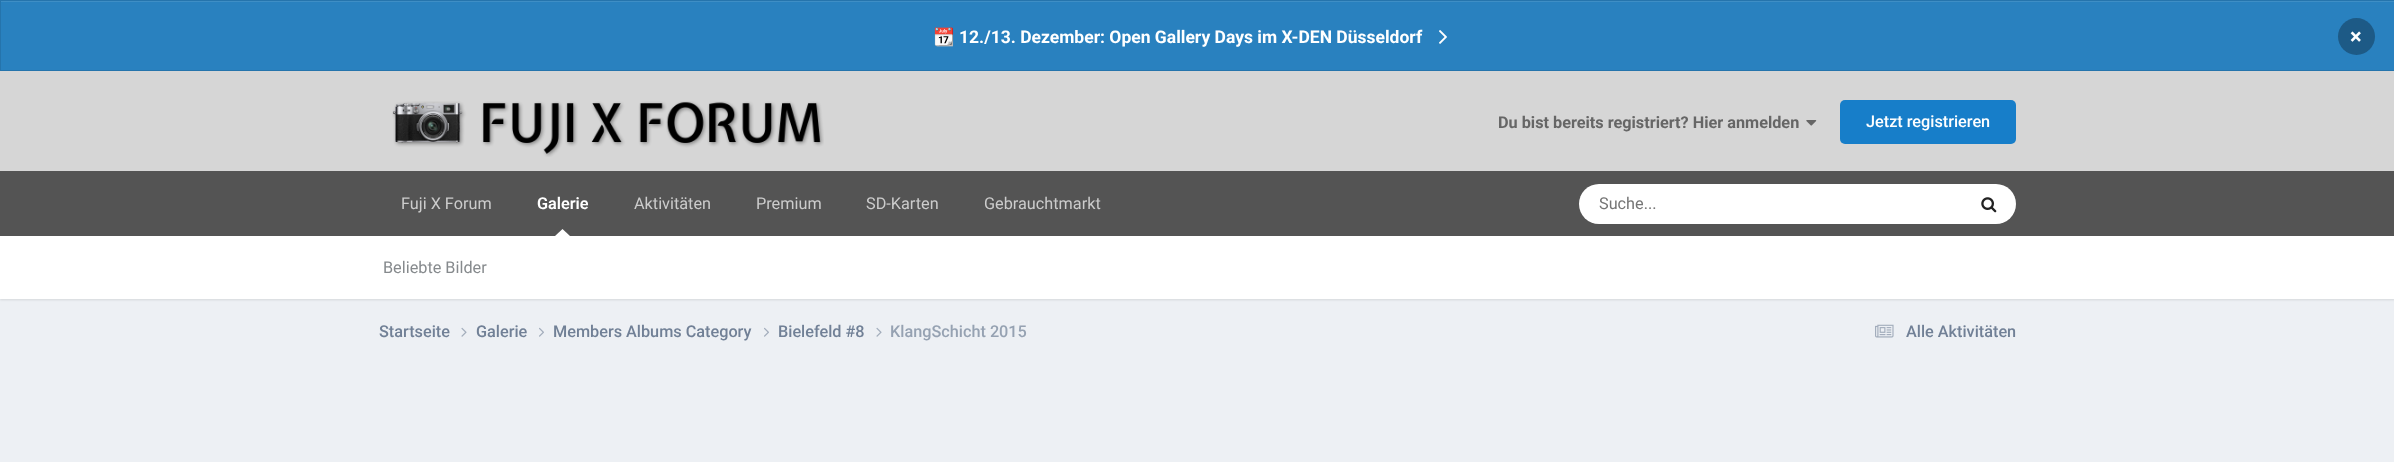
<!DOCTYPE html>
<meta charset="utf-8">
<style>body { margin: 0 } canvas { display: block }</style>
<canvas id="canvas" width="2394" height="462"></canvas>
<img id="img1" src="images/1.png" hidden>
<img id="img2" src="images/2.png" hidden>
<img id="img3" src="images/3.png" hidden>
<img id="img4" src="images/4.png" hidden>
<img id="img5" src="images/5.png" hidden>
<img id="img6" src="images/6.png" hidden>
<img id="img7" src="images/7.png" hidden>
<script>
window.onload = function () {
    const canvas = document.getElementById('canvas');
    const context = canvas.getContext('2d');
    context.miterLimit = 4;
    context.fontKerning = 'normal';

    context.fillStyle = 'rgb(237, 240, 244)';
    context.fillRect(0, 0, 2394, 462);
    context.fillStyle = 'rgb(41, 129, 191)';
    context.fillRect(1, 2, 2393, 68);
    context.fillStyle = 'rgb(62, 142, 197)';
    context.fillRect(1, 1, 2393, 1);
    context.strokeStyle = 'rgb(37, 116, 172)';
    context.strokeRect(0.5, 0.5, 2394, 70);
    context.drawImage(document.getElementById('img1'), 1439, 30, 8, 14);
    context.fillStyle = 'rgb(29, 90, 134)';
    context.beginPath();
    context.arc(2356.5, 36.5, 18.5, 0, 2 * Math.PI);
    context.fill();
    context.fillStyle = 'rgb(214, 214, 214)';
    context.fillRect(0, 71, 2394, 100);
    context.drawImage(document.getElementById('img2'), 392, 101, 432, 56);
    context.drawImage(document.getElementById('img3'), 1806, 120, 11, 6);
    context.fillStyle = 'rgb(23, 126, 201)';
    context.beginPath();
    context.roundRect(1840, 100, 176, 44, 5);
    context.fill();
    context.fillStyle = 'rgb(84, 84, 84)';
    context.fillRect(0, 171, 2394, 65);
    context.fillStyle = 'rgba(0, 0, 0, 0.1)';
    context.filter = 'blur(1px)';
    context.beginPath();
    context.rect(0, 238, 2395, 62);
    context.fill();
    context.filter = 'none';
    context.fillStyle = 'rgb(255, 255, 255)';
    context.beginPath();
    context.moveTo(570, 236);
    context.lineTo(555, 236);
    context.lineTo(562.5, 229);
    context.closePath();
    context.fill();
    context.beginPath();
    context.roundRect(1579, 184, 437, 40, 20);
    context.fill();
    context.drawImage(document.getElementById('img4'), 1981, 197, 16, 16);
    context.fillRect(0, 236, 2394, 63);
    context.drawImage(document.getElementById('img5'), 461, 327, 6, 10);
    context.drawImage(document.getElementById('img6'), 539, 327, 5, 10);
    context.drawImage(document.getElementById('img6'), 764, 327, 5, 10);
    context.drawImage(document.getElementById('img5'), 876, 327, 6, 10);
    context.drawImage(document.getElementById('img7'), 1875, 324, 19, 14);
    context.font = 'bold 17.5px Noto Color Emoji';
    context.fillText('📆', 933, 43);
    context.font = 'bold 17.5px Roboto';
    context.fillText('12./13. Dezember: Open Gallery Days im X-DEN Düsseldorf', 959, 43);
    context.font = 'bold 22px Roboto';
    context.fillText('×', 2350, 44);
    context.font = 'bold 16.25px Roboto';
    context.fillStyle = 'rgb(102, 102, 102)';
    context.fillText('Du bist bereits registriert? Hier anmelden', 1498, 128);
    context.font = '500 16.25px Roboto';
    context.fillStyle = 'rgb(255, 255, 255)';
    context.fillText('Jetzt registrieren', 1866, 127);
    context.font = '600 16.25px Roboto';
    context.fillText('Galerie', 537, 209);
    context.font = '16.25px Roboto';
    context.fillStyle = 'rgb(134, 138, 141)';
    context.fillText('Beliebte Bilder', 383, 273);
    context.fillStyle = 'rgb(204, 204, 204)';
    context.fillText('Aktivitäten', 634, 209);
    context.fillText('Gebrauchtmarkt', 984, 209);
    context.fillText('Fuji X Forum', 401, 209);
    context.fillText('Premium', 756, 209);
    context.fillText('SD-Karten', 866, 209);
    context.fillStyle = 'rgb(117, 117, 117)';
    context.fillText('Suche...', 1599, 209);
    context.font = '500 16.25px Roboto';
    context.fillStyle = 'rgb(113, 128, 150)';
    context.fillText('Startseite', 379, 337);
    context.fillText('Galerie', 476, 337);
    context.fillText('Members Albums Category', 553, 337);
    context.fillText('Bielefeld #8', 778, 337);
    context.fillStyle = 'rgb(150, 162, 178)';
    context.fillText('KlangSchicht 2015', 890, 337);
    context.fillStyle = 'rgb(113, 128, 150)';
    context.fillText('Alle Aktivitäten', 1906, 337);
};
</script>
